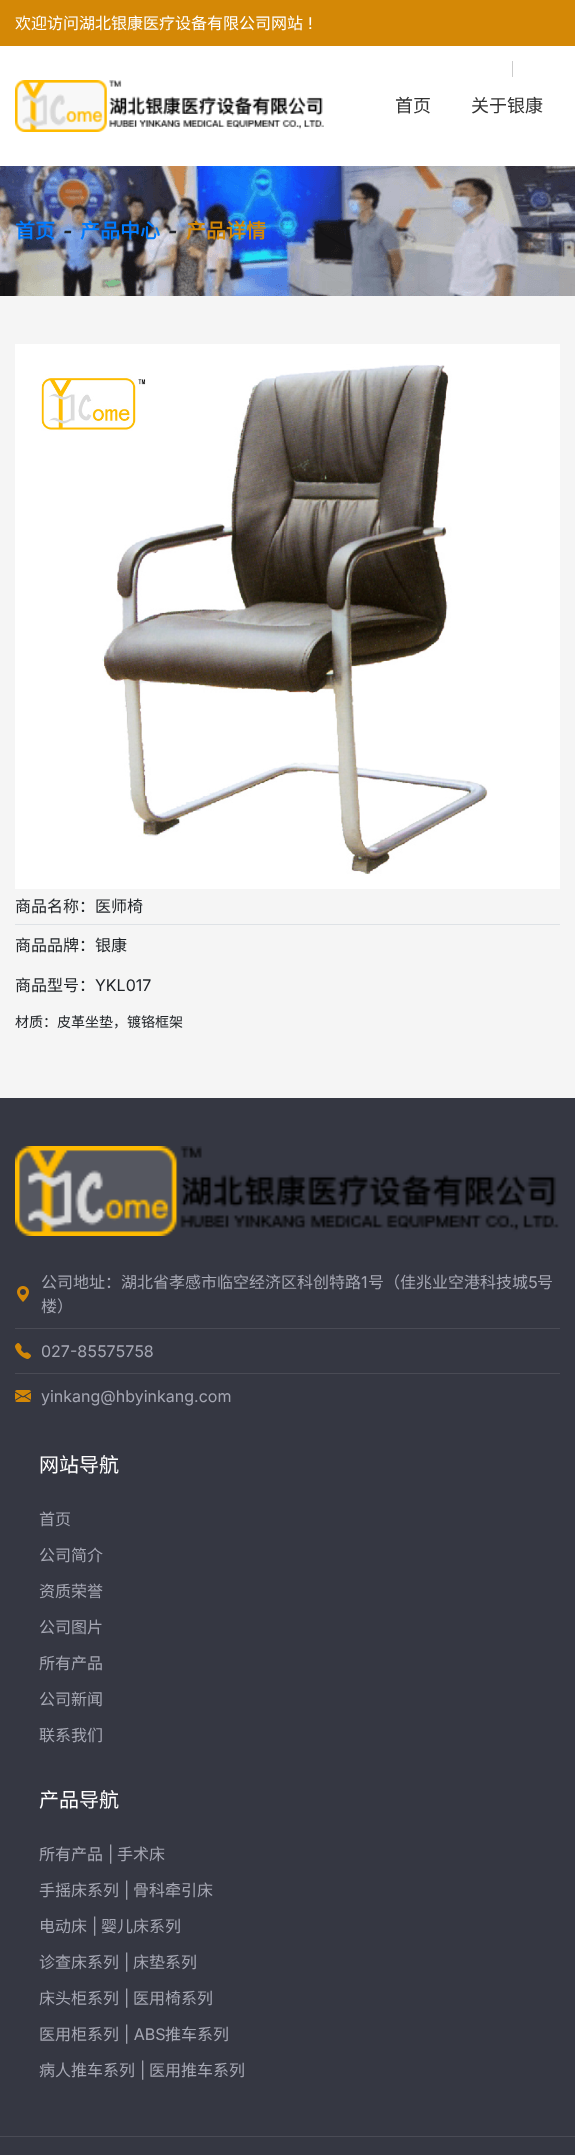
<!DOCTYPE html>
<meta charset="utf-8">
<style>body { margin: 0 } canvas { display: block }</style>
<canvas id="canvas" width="575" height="2155"></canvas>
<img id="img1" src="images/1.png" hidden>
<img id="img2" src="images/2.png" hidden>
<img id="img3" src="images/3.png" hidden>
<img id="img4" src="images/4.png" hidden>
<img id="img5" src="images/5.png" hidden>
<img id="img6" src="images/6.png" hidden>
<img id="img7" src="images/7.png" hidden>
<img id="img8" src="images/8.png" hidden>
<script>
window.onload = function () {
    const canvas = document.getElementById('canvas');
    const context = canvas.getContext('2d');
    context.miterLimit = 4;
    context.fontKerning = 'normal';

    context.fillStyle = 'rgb(245, 245, 245)';
    context.fillRect(0, 0, 575, 2155);
    context.fillStyle = 'rgb(212, 136, 6)';
    context.fillRect(0, 0, 575, 46);
    context.fillStyle = 'rgb(255, 255, 255)';
    context.fillRect(0, 46, 575, 120);
    context.fillStyle = 'rgb(204, 204, 204)';
    context.fillRect(512, 61, 1, 16);
    context.drawImage(document.getElementById('img1'), 15, 80, 309, 52);
    context.drawImage(document.getElementById('img2'), 0, 166, 575, 130);
    context.drawImage(document.getElementById('img3'), 0, 166, 575, 130);
    context.drawImage(document.getElementById('img4'), 15, 344, 545, 545);
    context.fillStyle = 'rgb(222, 226, 230)';
    context.fillRect(15, 924, 545, 1);
    context.fillStyle = 'rgb(53, 55, 66)';
    context.fillRect(0, 1098, 575, 1057);
    context.drawImage(document.getElementById('img5'), 15, 1146, 544, 90);
    context.fillStyle = 'rgb(74, 75, 85)';
    context.fillRect(15, 1328, 545, 1);
    context.drawImage(document.getElementById('img6'), 17, 1286, 12, 16);
    context.fillRect(15, 1373, 545, 1);
    context.drawImage(document.getElementById('img7'), 15, 1343, 16, 16);
    context.drawImage(document.getElementById('img8'), 15, 1390, 16, 12);
    context.fillRect(0, 2136, 575, 1);
    context.font = '16px Noto Sans CJK SC';
    context.fillStyle = 'rgb(255, 255, 255)';
    context.fillText('欢迎访问湖北银康医疗设备有限公司网站', 15, 29);
    context.font = '16px Inter';
    context.fillText('!', 308, 29);
    context.font = '18px Noto Sans CJK SC';
    context.fillStyle = 'rgb(51, 51, 51)';
    context.fillText('首页', 395, 112);
    context.fillText('关于银康', 471, 112);
    context.font = 'bold 20px Noto Sans CJK SC';
    context.fillStyle = 'rgb(0, 123, 255)';
    context.fillText('首页', 15, 238);
    context.font = 'italic bold 20px Inter';
    context.fillStyle = 'rgb(33, 37, 41)';
    context.fillText('-', 63, 238);
    context.font = 'bold 20px Noto Sans CJK SC';
    context.fillStyle = 'rgb(0, 123, 255)';
    context.fillText('产品中心', 80, 238);
    context.font = 'italic bold 20px Inter';
    context.fillStyle = 'rgb(33, 37, 41)';
    context.fillText('-', 168, 238);
    context.font = 'bold 20px Noto Sans CJK SC';
    context.fillStyle = 'rgb(212, 136, 6)';
    context.fillText('产品详情', 186, 238);
    context.font = '16px Noto Sans CJK SC';
    context.fillStyle = 'rgb(33, 37, 41)';
    context.fillText('商品名称：医师椅', 15, 912);
    context.fillText('商品品牌：银康', 15, 951);
    context.fillText('商品型号：', 15, 991);
    context.font = '16px Inter';
    context.fillText('YKL017', 95, 991);
    context.font = '14px Noto Sans CJK SC';
    context.fillText('材质：皮革坐垫，镀铬框架', 15, 1027);
    context.font = '16px Noto Sans CJK SC';
    context.fillStyle = 'rgb(165, 167, 179)';
    context.fillText('公司地址：湖北省孝感市临空经济区科创特路', 41, 1288);
    context.font = '16px Inter';
    context.fillText('1', 361, 1288);
    context.font = '16px Noto Sans CJK SC';
    context.fillText('号（佳兆业空港科技城', 368, 1288);
    context.font = '16px Inter';
    context.fillText('5', 528, 1288);
    context.font = '16px Noto Sans CJK SC';
    context.fillText('号', 537, 1288);
    context.fillText('楼）', 41, 1312);
    context.font = '16px Inter';
    context.fillText('027-85575758', 41, 1357);
    context.fillText('yinkang@hbyinkang.com', 41, 1402);
    context.font = '20px Noto Sans CJK SC';
    context.fillStyle = 'rgb(255, 255, 255)';
    context.fillText('网站导航', 39, 1472);
    context.font = '16px Noto Sans CJK SC';
    context.fillStyle = 'rgb(165, 167, 179)';
    context.fillText('首页', 39, 1525);
    context.fillText('公司简介', 39, 1561);
    context.fillText('资质荣誉', 39, 1597);
    context.fillText('公司图片', 39, 1633);
    context.fillText('所有产品', 39, 1669);
    context.fillText('公司新闻', 39, 1705);
    context.fillText('联系我们', 39, 1741);
    context.font = '20px Noto Sans CJK SC';
    context.fillStyle = 'rgb(255, 255, 255)';
    context.fillText('产品导航', 39, 1807);
    context.font = '16px Noto Sans CJK SC';
    context.fillStyle = 'rgb(165, 167, 179)';
    context.fillText('所有产品', 39, 1860);
    context.font = '16px Inter';
    context.fillText('|', 108, 1860);
    context.font = '16px Noto Sans CJK SC';
    context.fillText('手术床', 117, 1860);
    context.fillText('手摇床系列', 39, 1896);
    context.font = '16px Inter';
    context.fillText('|', 124, 1896);
    context.font = '16px Noto Sans CJK SC';
    context.fillText('骨科牵引床', 133, 1896);
    context.fillText('电动床', 39, 1932);
    context.font = '16px Inter';
    context.fillText('|', 92, 1932);
    context.font = '16px Noto Sans CJK SC';
    context.fillText('婴儿床系列', 101, 1932);
    context.fillText('诊查床系列', 39, 1968);
    context.font = '16px Inter';
    context.fillText('|', 124, 1968);
    context.font = '16px Noto Sans CJK SC';
    context.fillText('床垫系列', 133, 1968);
    context.fillText('床头柜系列', 39, 2004);
    context.font = '16px Inter';
    context.fillText('|', 124, 2004);
    context.font = '16px Noto Sans CJK SC';
    context.fillText('医用椅系列', 133, 2004);
    context.fillText('医用柜系列', 39, 2040);
    context.font = '16px Inter';
    context.fillText('| ABS', 124, 2040);
    context.font = '16px Noto Sans CJK SC';
    context.fillText('推车系列', 165, 2040);
    context.fillText('病人推车系列', 39, 2076);
    context.font = '16px Inter';
    context.fillText('|', 140, 2076);
    context.font = '16px Noto Sans CJK SC';
    context.fillText('医用推车系列', 149, 2076);
};
</script>
